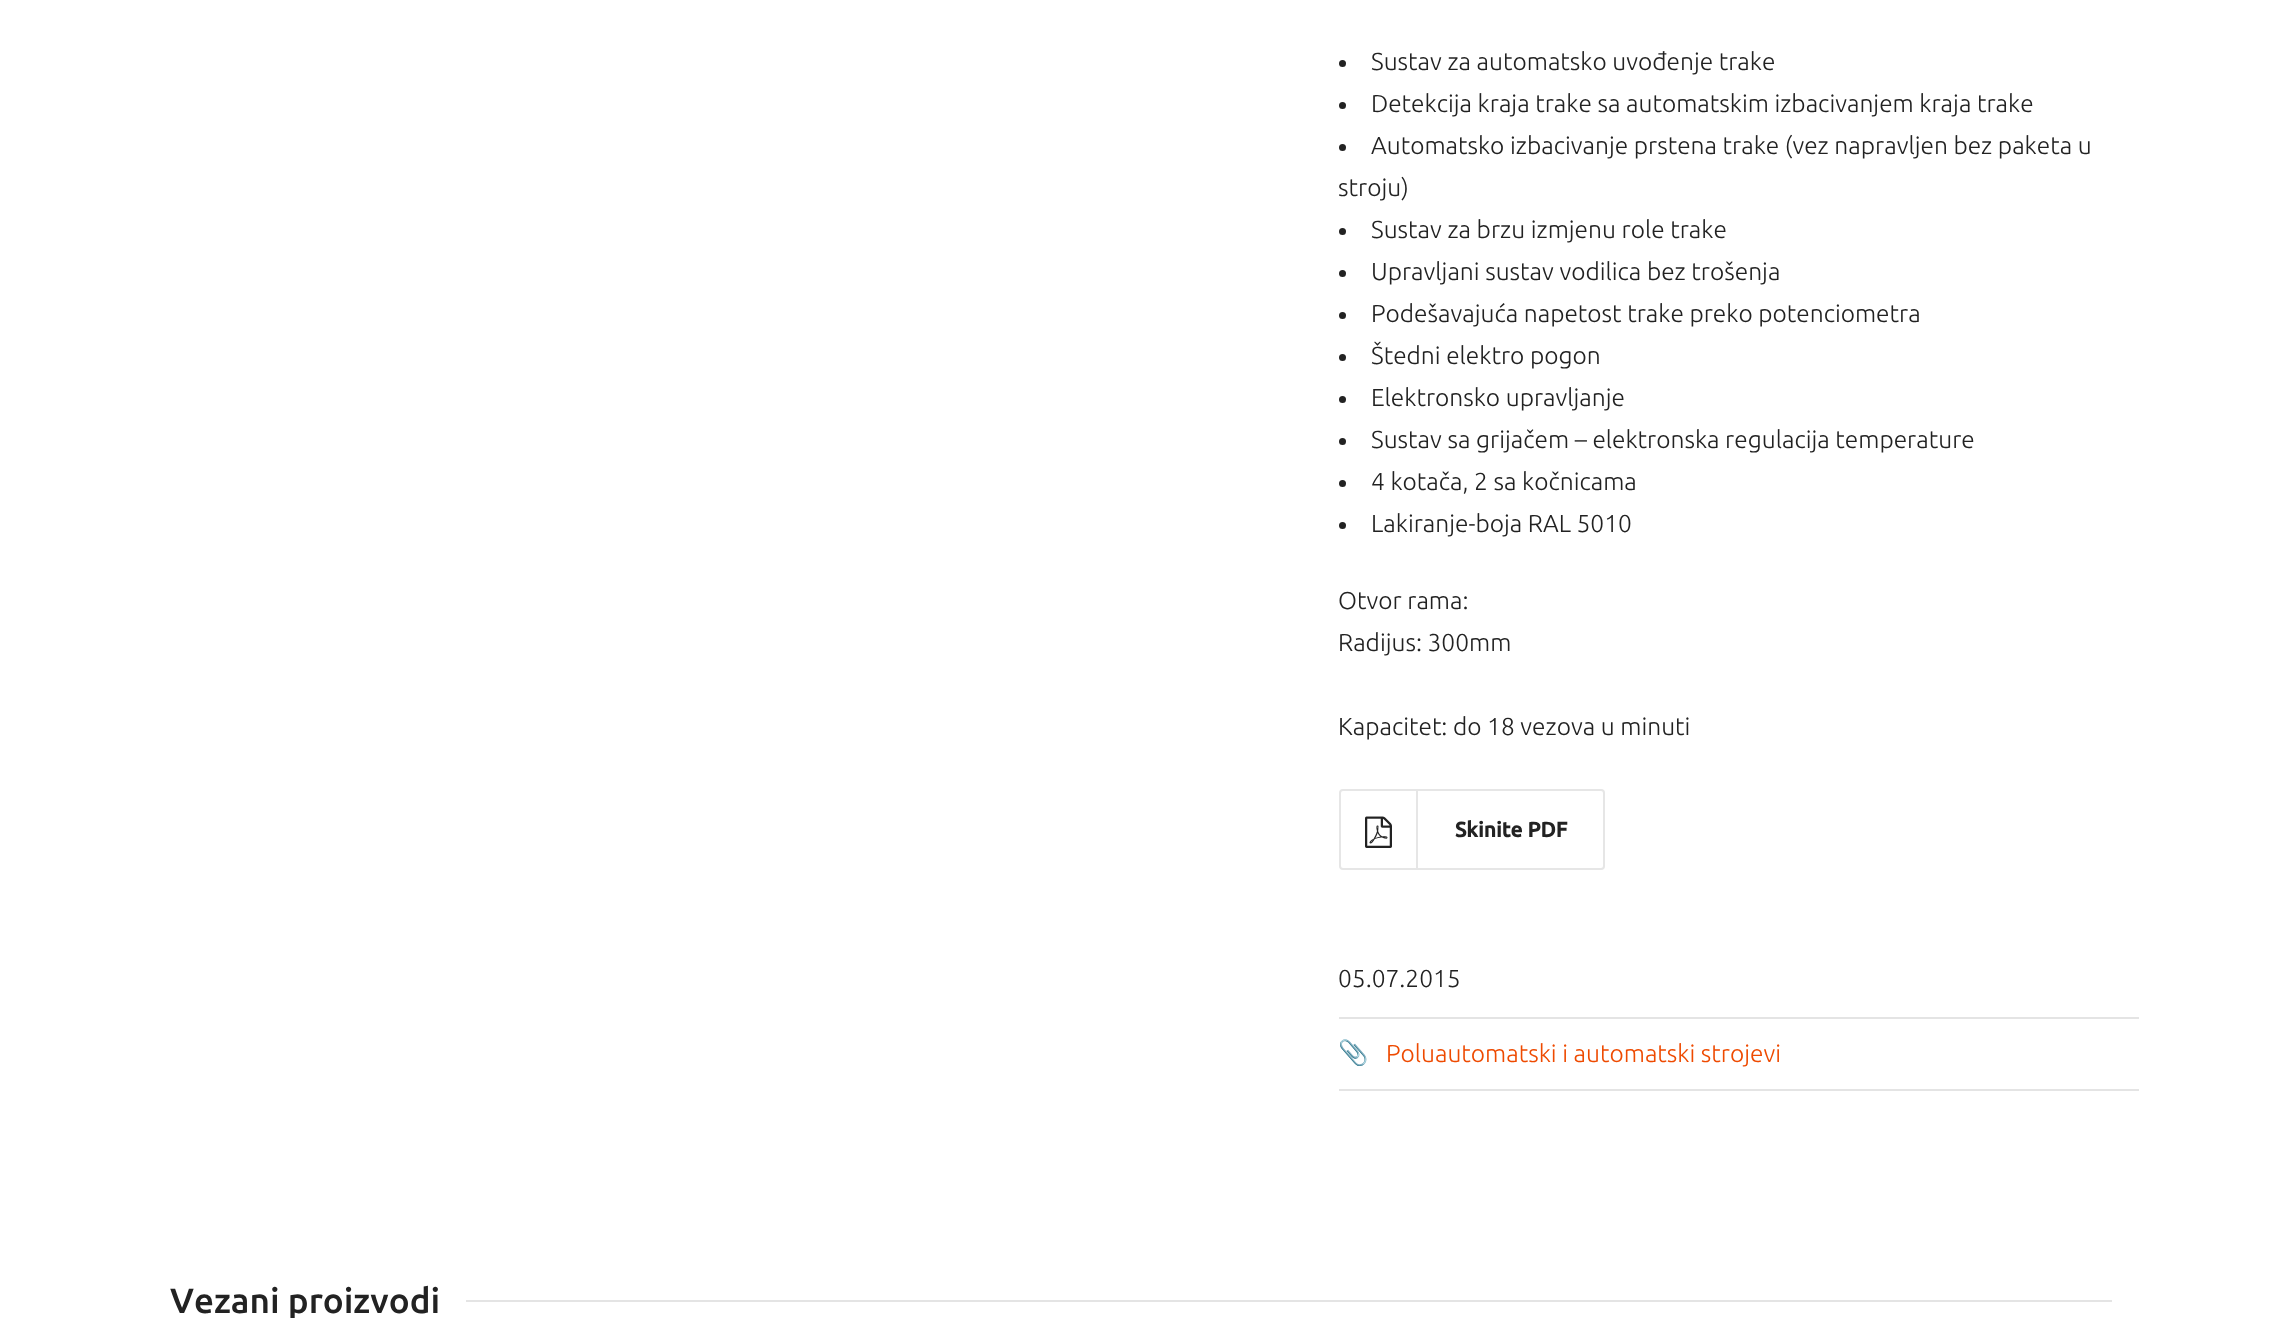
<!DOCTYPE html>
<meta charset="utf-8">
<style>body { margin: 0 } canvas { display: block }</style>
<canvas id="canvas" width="2281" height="1318"></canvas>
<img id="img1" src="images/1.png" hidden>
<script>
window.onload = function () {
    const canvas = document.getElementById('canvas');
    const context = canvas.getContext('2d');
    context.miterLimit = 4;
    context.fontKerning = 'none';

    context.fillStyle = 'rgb(255, 255, 255)';
    context.fillRect(0, 0, 2281, 1318);
    context.fillStyle = 'rgb(34, 34, 34)';
    context.beginPath();
    context.arc(1342.5, 63.5, 3.5, 0, 2 * Math.PI);
    context.fill();
    context.beginPath();
    context.arc(1342.5, 105.5, 3.5, 0, 2 * Math.PI);
    context.fill();
    context.beginPath();
    context.arc(1342.5, 147.5, 3.5, 0, 2 * Math.PI);
    context.fill();
    context.beginPath();
    context.arc(1342.5, 231.5, 3.5, 0, 2 * Math.PI);
    context.fill();
    context.beginPath();
    context.arc(1342.5, 273.5, 3.5, 0, 2 * Math.PI);
    context.fill();
    context.beginPath();
    context.arc(1342.5, 315.5, 3.5, 0, 2 * Math.PI);
    context.fill();
    context.beginPath();
    context.arc(1342.5, 357.5, 3.5, 0, 2 * Math.PI);
    context.fill();
    context.beginPath();
    context.arc(1342.5, 399.5, 3.5, 0, 2 * Math.PI);
    context.fill();
    context.beginPath();
    context.arc(1342.5, 441.5, 3.5, 0, 2 * Math.PI);
    context.fill();
    context.beginPath();
    context.arc(1342.5, 483.5, 3.5, 0, 2 * Math.PI);
    context.fill();
    context.beginPath();
    context.arc(1342.5, 525.5, 3.5, 0, 2 * Math.PI);
    context.fill();
    context.beginPath();
    context.roundRect(1340, 790, 264, 79, 3);
    context.strokeStyle = 'rgb(230, 230, 230)';
    context.lineWidth = 2;
    context.stroke();
    context.fillStyle = 'rgb(230, 230, 230)';
    context.fillRect(1416, 791, 2, 77);
    context.drawImage(document.getElementById('img1'), 1365, 816, 27, 32);
    context.fillStyle = 'rgb(228, 228, 228)';
    context.fillRect(1339, 1017, 800, 2);
    context.fillRect(1339, 1089, 800, 2);
    context.fillRect(466, 1300, 1646, 2);
    context.font = '300 24.5px Ubuntu';
    context.fillStyle = 'rgb(34, 34, 34)';
    context.fillText('Sustav za automatsko uvođenje trake', 1371, 70);
    context.fillText('Detekcija kraja trake sa automatskim izbacivanjem kraja trake', 1371, 112);
    context.fillText('Automatsko izbacivanje prstena trake (vez napravljen bez paketa u', 1371, 154);
    context.fillText('stroju)', 1338, 196);
    context.fillText('Sustav za brzu izmjenu role trake', 1371, 238);
    context.fillText('Upravljani sustav vodilica bez trošenja', 1371, 280);
    context.fillText('Podešavajuća napetost trake preko potenciometra', 1371, 322);
    context.fillText('Štedni elektro pogon', 1371, 364);
    context.fillText('Elektronsko upravljanje', 1371, 406);
    context.fillText('Sustav sa grijačem – elektronska regulacija temperature', 1371, 448);
    context.fillText('4 kotača, 2 sa kočnicama', 1371, 490);
    context.fillText('Lakiranje-boja RAL 5010', 1371, 532);
    context.fillText('Otvor rama:', 1338, 609);
    context.fillText('Radijus: 300mm', 1338, 651);
    context.fillText('Kapacitet: do 18 vezova u minuti', 1338, 735);
    context.font = 'bold 21px Ubuntu';
    context.fillText('Skinite PDF', 1455, 837);
    context.font = '300 24.5px Ubuntu';
    context.fillText('05.07.2015', 1338, 987);
    context.font = '24.5px Noto Color Emoji';
    context.fillStyle = 'rgb(238, 74, 0)';
    context.fillText('📎', 1338, 1061);
    context.font = '300 24.5px Ubuntu';
    context.fillText('Poluautomatski i automatski strojevi', 1386, 1062);
    context.font = '500 35px Ubuntu';
    context.fillStyle = 'rgb(34, 34, 34)';
    context.fillText('Vezani proizvodi', 170, 1313);
};
</script>
